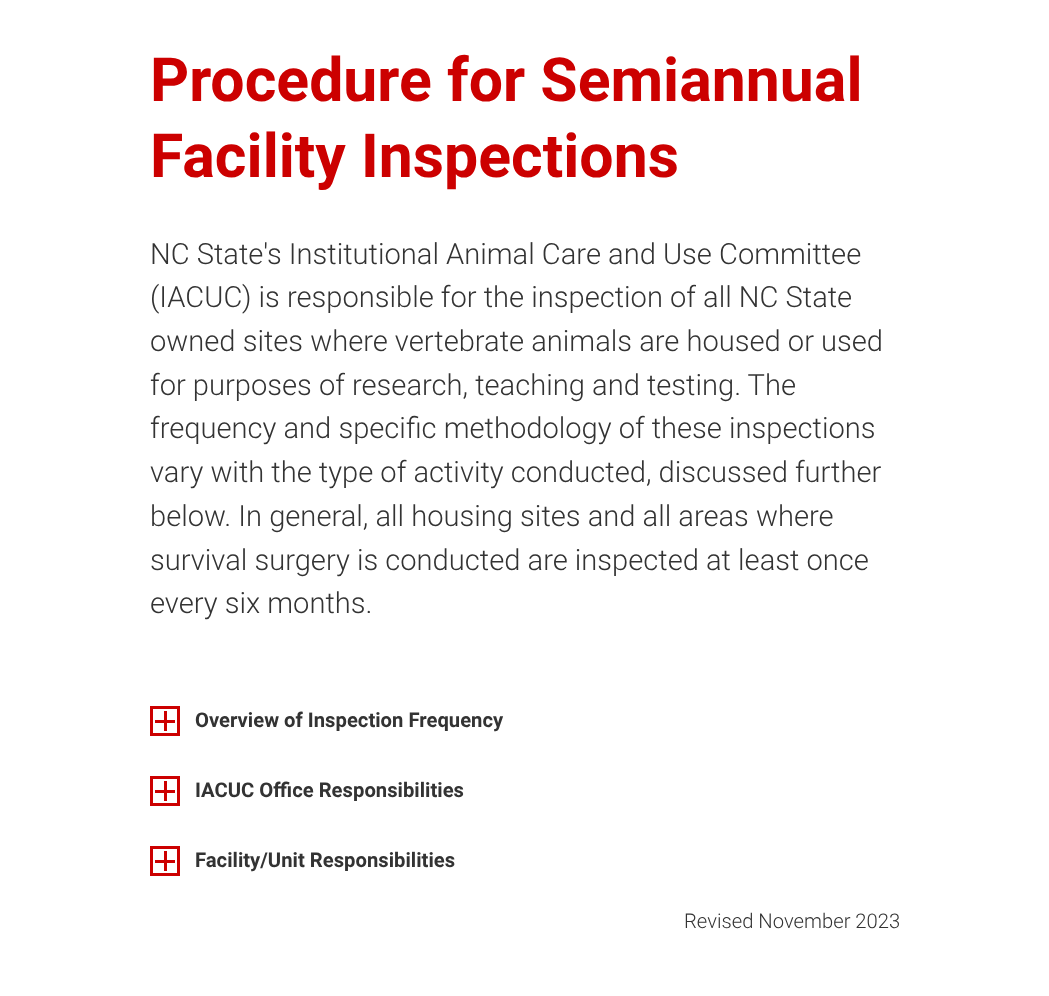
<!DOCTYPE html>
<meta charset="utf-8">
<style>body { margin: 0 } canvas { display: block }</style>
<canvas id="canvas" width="1049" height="996"></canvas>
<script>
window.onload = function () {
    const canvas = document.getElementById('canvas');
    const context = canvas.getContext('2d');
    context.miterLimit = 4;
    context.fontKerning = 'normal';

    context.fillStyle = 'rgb(255, 255, 255)';
    context.fillRect(0, 0, 1049, 996);
    context.strokeStyle = 'rgb(204, 0, 0)';
    context.lineWidth = 3;
    context.strokeRect(151.5, 707.5, 27, 27);
    context.fillStyle = 'rgb(204, 0, 0)';
    context.fillRect(155, 720, 20, 3);
    context.fillRect(164, 711, 3, 20);
    context.strokeRect(151.5, 777.5, 27, 27);
    context.fillRect(155, 790, 20, 3);
    context.fillRect(164, 781, 3, 20);
    context.strokeRect(151.5, 847.5, 27, 27);
    context.fillRect(155, 860, 20, 3);
    context.fillRect(164, 851, 3, 20);
    context.font = 'bold 60.75px Roboto';
    context.fillText('Procedure for Semiannual', 150, 101);
    context.fillText('Facility Inspections', 150, 177);
    context.font = '300 29.15px Roboto';
    context.fillStyle = 'rgb(51, 51, 51)';
    context.fillText('NC State\'s Institutional Animal Care and Use Committee', 150, 264);
    context.fillText('(IACUC) is responsible for the inspection of all NC State', 150, 307);
    context.fillText('owned sites where vertebrate animals are housed or used', 150, 351);
    context.fillText('for purposes of research, teaching and testing. The', 150, 395);
    context.fillText('frequency and specific methodology of these inspections', 150, 438);
    context.fillText('vary with the type of activity conducted, discussed further', 150, 482);
    context.fillText('below. In general, all housing sites and all areas where', 150, 526);
    context.fillText('survival surgery is conducted are inspected at least once', 150, 570);
    context.fillText('every six months.', 150, 613);
    context.font = 'bold 20.25px Roboto';
    context.fillText('Overview of Inspection Frequency', 195, 727);
    context.fillText('IACUC Office Responsibilities', 195, 797);
    context.fillText('Facility/Unit Responsibilities', 195, 867);
    context.font = '300 20.25px Roboto';
    context.fillText('Revised November 2023', 684, 928);
};
</script>
